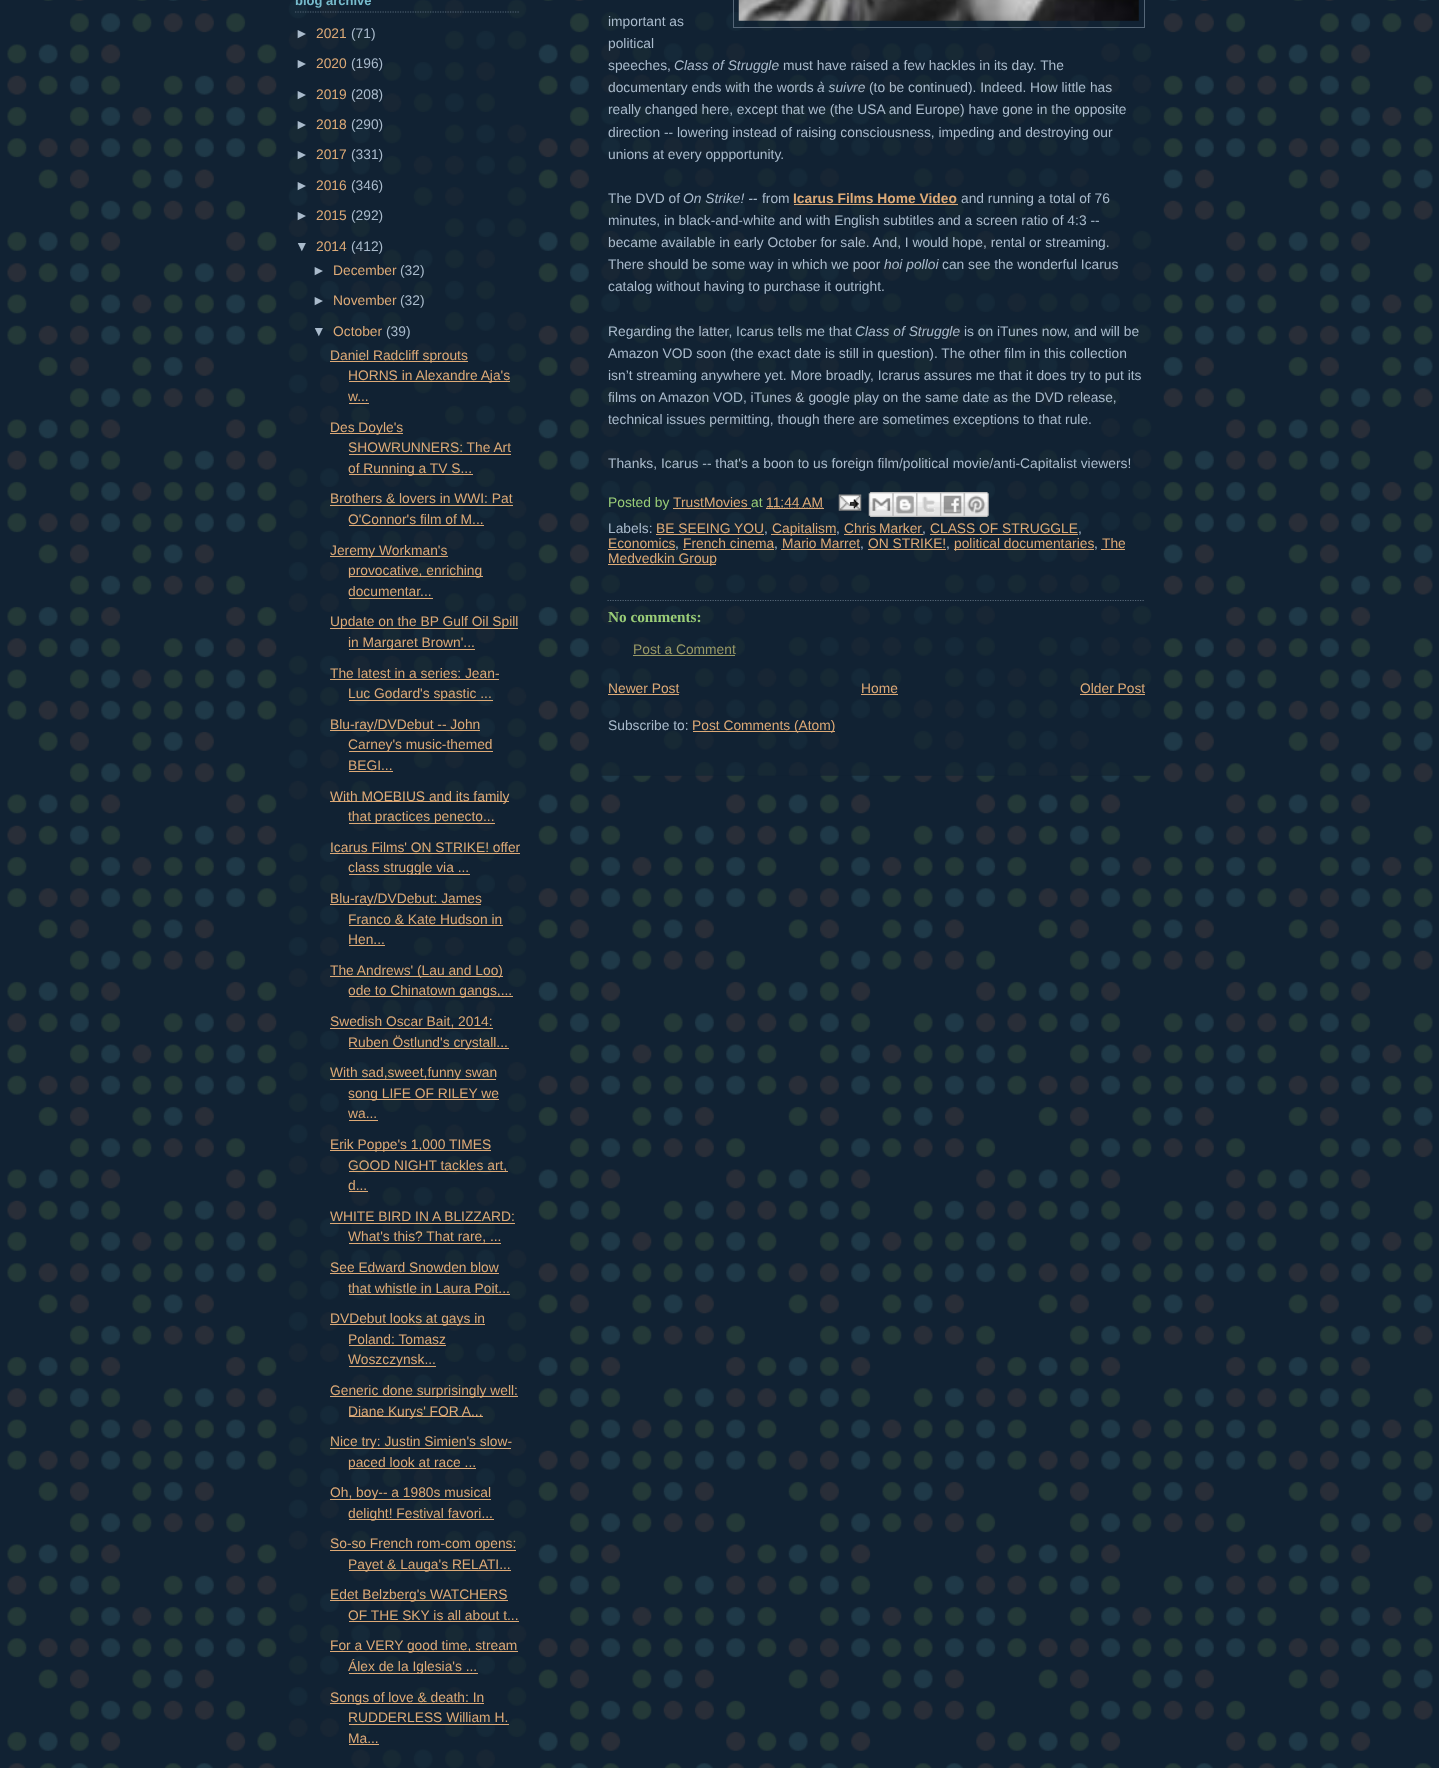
<!DOCTYPE html>
<meta charset="utf-8">
<style>body { margin: 0 } canvas { display: block }</style>
<canvas id="canvas" width="1439" height="1768"></canvas>
<img id="img1" src="images/1.png" hidden>
<img id="img2" src="images/2.png" hidden>
<img id="img3" src="images/3.png" hidden>
<img id="img4" src="images/4.png" hidden>
<img id="img5" src="images/5.png" hidden>
<img id="img6" src="images/6.png" hidden>
<img id="img7" src="images/7.png" hidden>
<img id="img8" src="images/8.png" hidden>
<img id="img9" src="images/9.png" hidden>
<img id="img10" src="images/10.png" hidden>
<script>
window.onload = function () {
    const canvas = document.getElementById('canvas');
    const context = canvas.getContext('2d');
    context.miterLimit = 4;
    context.fontKerning = 'normal';

    context.fillStyle = 'rgb(17, 34, 51)';
    context.fillRect(0, 0, 1439, 1768);
    context.drawImage(document.getElementById('img1'), 7, 0, 1426, 1768);
    context.drawImage(document.getElementById('img2'), 288, 0, 239, 1768);
    context.beginPath();
    context.moveTo(295, 12);
    context.lineTo(520, 12);
    context.strokeStyle = 'rgb(85, 102, 119)';
    context.lineWidth = 1.2;
    context.setLineDash([1.25, 1.25]);
    context.stroke();
    context.fillStyle = 'rgb(221, 170, 119)';
    context.fillRect(330, 361, 138, 1);
    context.fillRect(349, 381, 161, 1);
    context.fillRect(349, 403, 20, 1);
    context.fillRect(330, 433, 73, 1);
    context.fillRect(349, 454, 162, 1);
    context.fillRect(349, 474, 124, 1);
    context.fillRect(330, 505, 183, 1);
    context.fillRect(349, 525, 135, 1);
    context.fillRect(330, 556, 118, 1);
    context.fillRect(349, 576, 134, 1);
    context.fillRect(349, 598, 84, 1);
    context.fillRect(330, 628, 188, 1);
    context.fillRect(349, 649, 126, 1);
    context.fillRect(330, 679, 169, 1);
    context.fillRect(349, 700, 144, 1);
    context.fillRect(330, 730, 150, 1);
    context.fillRect(349, 751, 144, 1);
    context.fillRect(349, 771, 44, 1);
    context.fillRect(330, 801, 179, 1);
    context.fillRect(349, 823, 146, 1);
    context.fillRect(330, 853, 190, 1);
    context.fillRect(349, 874, 121, 1);
    context.fillRect(330, 904, 151, 1);
    context.fillRect(349, 925, 154, 1);
    context.fillRect(349, 945, 36, 1);
    context.fillRect(330, 976, 173, 1);
    context.fillRect(349, 996, 164, 1);
    context.fillRect(330, 1028, 163, 1);
    context.fillRect(349, 1048, 160, 1);
    context.fillRect(330, 1079, 166, 1);
    context.fillRect(349, 1099, 150, 1);
    context.fillRect(349, 1120, 29, 1);
    context.fillRect(330, 1150, 161, 1);
    context.fillRect(349, 1171, 159, 1);
    context.fillRect(349, 1191, 19, 1);
    context.fillRect(330, 1223, 185, 1);
    context.fillRect(349, 1243, 152, 1);
    context.fillRect(330, 1273, 169, 1);
    context.fillRect(349, 1294, 161, 1);
    context.fillRect(330, 1324, 155, 1);
    context.fillRect(349, 1345, 97, 1);
    context.fillRect(349, 1366, 87, 1);
    context.fillRect(330, 1396, 188, 1);
    context.fillRect(349, 1416, 134, 1);
    context.fillRect(330, 1448, 181, 1);
    context.fillRect(349, 1468, 127, 1);
    context.fillRect(330, 1499, 161, 1);
    context.fillRect(349, 1519, 145, 1);
    context.fillRect(330, 1550, 186, 1);
    context.fillRect(349, 1570, 162, 1);
    context.fillRect(330, 1600, 178, 1);
    context.fillRect(349, 1621, 170, 1);
    context.fillRect(330, 1651, 188, 1);
    context.fillRect(349, 1673, 129, 1);
    context.fillRect(330, 1703, 154, 1);
    context.fillRect(349, 1724, 160, 1);
    context.fillRect(349, 1744, 30, 1);
    context.drawImage(document.getElementById('img3'), 601, 0, 551, 776);
    context.lineWidth = 1;
    context.setLineDash([]);
    context.strokeRect(733.5, -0.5, 411, 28);
    context.drawImage(document.getElementById('img4'), 738, 0, 401, 21);
    context.fillRect(794, 204, 164, 1);
    context.fillRect(673, 508, 78, 1);
    context.beginPath();
    context.moveTo(766.5, 508);
    context.lineTo(823.5, 508);
    context.strokeStyle = 'rgb(221, 170, 119)';
    context.lineWidth = 1.2;
    context.setLineDash([1.25, 1.25]);
    context.stroke();
    context.fillRect(766, 508, 58, 1);
    context.drawImage(document.getElementById('img5'), 838, 494, 24, 17);
    context.drawImage(document.getElementById('img6'), 868, 492, 25, 25);
    context.drawImage(document.getElementById('img7'), 892, 492, 25, 25);
    context.drawImage(document.getElementById('img8'), 916, 492, 24, 25);
    context.drawImage(document.getElementById('img9'), 940, 492, 24, 25);
    context.drawImage(document.getElementById('img10'), 963, 492, 26, 25);
    context.fillRect(656, 534, 108, 1);
    context.fillRect(771, 534, 65, 1);
    context.fillRect(844, 534, 79, 1);
    context.fillRect(930, 534, 148, 1);
    context.fillRect(608, 549, 67, 1);
    context.fillRect(683, 549, 91, 1);
    context.fillRect(781, 549, 79, 1);
    context.fillRect(868, 549, 78, 1);
    context.fillRect(954, 549, 140, 1);
    context.fillRect(1101, 549, 24, 1);
    context.fillRect(608, 564, 108, 1);
    context.beginPath();
    context.moveTo(607.5, 600.5);
    context.lineTo(1145, 600.5);
    context.strokeStyle = 'rgb(85, 102, 119)';
    context.stroke();
    context.fillStyle = 'rgb(153, 153, 102)';
    context.fillRect(633, 655, 102, 1);
    context.fillStyle = 'rgb(221, 170, 119)';
    context.fillRect(608, 694, 71, 1);
    context.fillRect(861, 694, 37, 1);
    context.fillRect(1080, 694, 65, 1);
    context.fillRect(693, 731, 142, 1);
    context.font = 'bold 13px Liberation Sans';
    context.fillStyle = 'rgb(119, 187, 204)';
    context.fillText('blog archive', 295, 5);
    context.font = '13.8px Liberation Sans';
    context.fillStyle = 'rgb(170, 187, 204)';
    context.fillText('►', 295, 38);
    context.fillStyle = 'rgb(221, 170, 119)';
    context.fillText('2021', 316, 38);
    context.fillStyle = 'rgb(170, 187, 204)';
    context.fillText('(71)', 351, 38);
    context.fillText('►', 295, 68);
    context.fillStyle = 'rgb(221, 170, 119)';
    context.fillText('2020', 316, 68);
    context.fillStyle = 'rgb(170, 187, 204)';
    context.fillText('(196)', 351, 68);
    context.fillText('►', 295, 99);
    context.fillStyle = 'rgb(221, 170, 119)';
    context.fillText('2019', 316, 99);
    context.fillStyle = 'rgb(170, 187, 204)';
    context.fillText('(208)', 351, 99);
    context.fillText('►', 295, 129);
    context.fillStyle = 'rgb(221, 170, 119)';
    context.fillText('2018', 316, 129);
    context.fillStyle = 'rgb(170, 187, 204)';
    context.fillText('(290)', 351, 129);
    context.fillText('►', 295, 159);
    context.fillStyle = 'rgb(221, 170, 119)';
    context.fillText('2017', 316, 159);
    context.fillStyle = 'rgb(170, 187, 204)';
    context.fillText('(331)', 351, 159);
    context.fillText('►', 295, 190);
    context.fillStyle = 'rgb(221, 170, 119)';
    context.fillText('2016', 316, 190);
    context.fillStyle = 'rgb(170, 187, 204)';
    context.fillText('(346)', 351, 190);
    context.fillText('►', 295, 220);
    context.fillStyle = 'rgb(221, 170, 119)';
    context.fillText('2015', 316, 220);
    context.fillStyle = 'rgb(170, 187, 204)';
    context.fillText('(292)', 351, 220);
    context.fillText('▼', 295, 251);
    context.fillStyle = 'rgb(221, 170, 119)';
    context.fillText('2014', 316, 251);
    context.fillStyle = 'rgb(170, 187, 204)';
    context.fillText('(412)', 351, 251);
    context.fillText('►', 312, 275);
    context.fillStyle = 'rgb(221, 170, 119)';
    context.fillText('December', 333, 275);
    context.fillStyle = 'rgb(170, 187, 204)';
    context.fillText('(32)', 400, 275);
    context.fillText('►', 312, 305);
    context.fillStyle = 'rgb(221, 170, 119)';
    context.fillText('November', 333, 305);
    context.fillStyle = 'rgb(170, 187, 204)';
    context.fillText('(32)', 400, 305);
    context.fillText('▼', 312, 336);
    context.fillStyle = 'rgb(221, 170, 119)';
    context.fillText('October', 333, 336);
    context.fillStyle = 'rgb(170, 187, 204)';
    context.fillText('(39)', 386, 336);
    context.fillStyle = 'rgb(221, 170, 119)';
    context.fillText('Daniel Radcliff sprouts', 330, 360);
    context.fillText('HORNS in Alexandre Aja\'s', 348, 380);
    context.fillText('w...', 348, 401);
    context.fillText('Des Doyle\'s', 330, 432);
    context.fillText('SHOWRUNNERS: The Art', 348, 452);
    context.fillText('of Running a TV S...', 348, 473);
    context.fillText('Brothers & lovers in WWI: Pat', 330, 503);
    context.fillText('O\'Connor\'s film of M...', 348, 524);
    context.fillText('Jeremy Workman\'s', 330, 555);
    context.fillText('provocative, enriching', 348, 575);
    context.fillText('documentar...', 348, 596);
    context.fillText('Update on the BP Gulf Oil Spill', 330, 626);
    context.fillText('in Margaret Brown\'...', 348, 647);
    context.fillText('The latest in a series: Jean-', 330, 678);
    context.fillText('Luc Godard\'s spastic ...', 348, 698);
    context.fillText('Blu-ray/DVDebut -- John', 330, 729);
    context.fillText('Carney\'s music-themed', 348, 749);
    context.fillText('BEGI...', 348, 770);
    context.fillText('With MOEBIUS and its family', 330, 801);
    context.fillText('that practices penecto...', 348, 821);
    context.fillText('Icarus Films\' ON STRIKE! offer', 330, 852);
    context.fillText('class struggle via ...', 348, 872);
    context.fillText('Blu-ray/DVDebut: James', 330, 903);
    context.fillText('Franco & Kate Hudson in', 348, 924);
    context.fillText('Hen...', 348, 944);
    context.fillText('The Andrews\' (Lau and Loo)', 330, 975);
    context.fillText('ode to Chinatown gangs,...', 348, 995);
    context.fillText('Swedish Oscar Bait, 2014:', 330, 1026);
    context.fillText('Ruben Östlund\'s crystall...', 348, 1047);
    context.fillText('With sad,sweet,funny swan', 330, 1077);
    context.fillText('song LIFE OF RILEY we', 348, 1098);
    context.fillText('wa...', 348, 1118);
    context.fillText('Erik Poppe\'s 1,000 TIMES', 330, 1149);
    context.fillText('GOOD NIGHT tackles art,', 348, 1170);
    context.fillText('d...', 348, 1190);
    context.fillText('WHITE BIRD IN A BLIZZARD:', 330, 1221);
    context.fillText('What\'s this? That rare, ...', 348, 1241);
    context.fillText('See Edward Snowden blow', 330, 1272);
    context.fillText('that whistle in Laura Poit...', 348, 1293);
    context.fillText('DVDebut looks at gays in', 330, 1323);
    context.fillText('Poland: Tomasz', 348, 1344);
    context.fillText('Woszczynsk...', 348, 1364);
    context.fillText('Generic done surprisingly well:', 330, 1395);
    context.fillText('Diane Kurys\' FOR A...', 348, 1416);
    context.fillText('Nice try: Justin Simien\'s slow-', 330, 1446);
    context.fillText('paced look at race ...', 348, 1467);
    context.fillText('Oh, boy-- a 1980s musical', 330, 1497);
    context.fillText('delight! Festival favori...', 348, 1518);
    context.fillText('So-so French rom-com opens:', 330, 1548);
    context.fillText('Payet & Lauga\'s RELATI...', 348, 1569);
    context.fillText('Edet Belzberg\'s WATCHERS', 330, 1599);
    context.fillText('OF THE SKY is all about t...', 348, 1620);
    context.fillText('For a VERY good time, stream', 330, 1650);
    context.fillText('Álex de la Iglesia\'s ...', 348, 1671);
    context.fillText('Songs of love & death: In', 330, 1702);
    context.fillText('RUDDERLESS William H.', 348, 1722);
    context.fillText('Ma...', 348, 1743);
    context.fillStyle = 'rgb(170, 187, 204)';
    context.fillText('important as', 608, 26);
    context.fillText('political', 608, 48);
    context.fillText('speeches,', 608, 70);
    context.font = 'italic 13.8px Liberation Sans';
    context.fillText('Class of Struggle', 674, 70);
    context.font = '13.8px Liberation Sans';
    context.fillText('must have raised a few hackles in its day. The', 783, 70);
    context.fillText('documentary ends with the words', 608, 92);
    context.font = 'italic 13.8px Liberation Sans';
    context.fillText('à suivre', 817, 92);
    context.font = '13.8px Liberation Sans';
    context.fillText('(to be continued). Indeed. How little has', 869, 92);
    context.fillText('really changed here, except that we (the USA and Europe) have gone in the opposite', 608, 114);
    context.fillText('direction -- lowering instead of raising consciousness, impeding and destroying our', 608, 137);
    context.fillText('unions at every oppportunity.', 608, 159);
    context.fillText('The DVD of', 608, 203);
    context.font = 'italic 13.8px Liberation Sans';
    context.fillText('On Strike! --', 683, 203);
    context.font = '13.8px Liberation Sans';
    context.fillText('from', 762, 203);
    context.font = 'bold 13.8px Liberation Sans';
    context.fillStyle = 'rgb(221, 170, 119)';
    context.fillText('Icarus Films Home Video', 793, 203);
    context.font = '13.8px Liberation Sans';
    context.fillStyle = 'rgb(170, 187, 204)';
    context.fillText('and running a total of 76', 961, 203);
    context.fillText('minutes, in black-and-white and with English subtitles and a screen ratio of 4:3 --', 608, 225);
    context.fillText('became available in early October for sale. And, I would hope, rental or streaming.', 608, 247);
    context.fillText('There should be some way in which we poor', 608, 269);
    context.font = 'italic 13.8px Liberation Sans';
    context.fillText('hoi polloi', 884, 269);
    context.font = '13.8px Liberation Sans';
    context.fillText('can see the wonderful Icarus', 942, 269);
    context.fillText('catalog without having to purchase it outright.', 608, 291);
    context.fillText('Regarding the latter, Icarus tells me that', 608, 336);
    context.font = 'italic 13.8px Liberation Sans';
    context.fillText('Class of Struggle', 855, 336);
    context.font = '13.8px Liberation Sans';
    context.fillText('is on iTunes now, and will be', 964, 336);
    context.fillText('Amazon VOD soon (the exact date is still in question). The other film in this collection', 608, 358);
    context.fillText('isn’t streaming anywhere yet. More broadly, Icrarus assures me that it does try to put its', 608, 380);
    context.fillText('films on Amazon VOD, iTunes & google play on the same date as the DVD release,', 608, 402);
    context.fillText('technical issues permitting, though there are sometimes exceptions to that rule.', 608, 424);
    context.fillText('Thanks, Icarus -- that\'s a boon to us foreign film/political movie/anti-Capitalist viewers!', 608, 468);
    context.fillStyle = 'rgb(153, 204, 119)';
    context.fillText('Posted by', 608, 507);
    context.fillStyle = 'rgb(221, 170, 119)';
    context.fillText('TrustMovies', 673, 507);
    context.fillStyle = 'rgb(153, 204, 119)';
    context.fillText('at', 751, 507);
    context.fillStyle = 'rgb(221, 170, 119)';
    context.fillText('11:44 AM', 766, 507);
    context.fillStyle = 'rgb(170, 187, 204)';
    context.fillText('Labels:', 608, 533);
    context.fillStyle = 'rgb(221, 170, 119)';
    context.fillText('BE SEEING YOU', 656, 533);
    context.fillStyle = 'rgb(170, 187, 204)';
    context.fillText(',', 764, 533);
    context.fillStyle = 'rgb(221, 170, 119)';
    context.fillText('Capitalism', 772, 533);
    context.fillStyle = 'rgb(170, 187, 204)';
    context.fillText(',', 836, 533);
    context.wordSpacing = '-1px';
    context.fillStyle = 'rgb(221, 170, 119)';
    context.fillText('Chris Marker', 844, 533);
    context.wordSpacing = '0px';
    context.fillStyle = 'rgb(170, 187, 204)';
    context.fillText(',', 922, 533);
    context.fillStyle = 'rgb(221, 170, 119)';
    context.fillText('CLASS OF STRUGGLE', 930, 533);
    context.fillStyle = 'rgb(170, 187, 204)';
    context.fillText(',', 1078, 533);
    context.fillStyle = 'rgb(221, 170, 119)';
    context.fillText('Economics', 608, 548);
    context.fillStyle = 'rgb(170, 187, 204)';
    context.fillText(',', 675, 548);
    context.fillStyle = 'rgb(221, 170, 119)';
    context.fillText('French cinema', 683, 548);
    context.fillStyle = 'rgb(170, 187, 204)';
    context.fillText(',', 774, 548);
    context.fillStyle = 'rgb(221, 170, 119)';
    context.fillText('Mario Marret', 782, 548);
    context.fillStyle = 'rgb(170, 187, 204)';
    context.fillText(',', 860, 548);
    context.fillStyle = 'rgb(221, 170, 119)';
    context.fillText('ON STRIKE!', 868, 548);
    context.fillStyle = 'rgb(170, 187, 204)';
    context.fillText(',', 946, 548);
    context.fillStyle = 'rgb(221, 170, 119)';
    context.fillText('political documentaries', 954, 548);
    context.fillStyle = 'rgb(170, 187, 204)';
    context.fillText(',', 1094, 548);
    context.fillStyle = 'rgb(221, 170, 119)';
    context.fillText('The', 1102, 548);
    context.fillText('Medvedkin Group', 608, 563);
    context.font = 'bold 15.25px Liberation Serif';
    context.fillStyle = 'rgb(153, 204, 119)';
    context.fillText('No comments:', 608, 622);
    context.font = '13.8px Liberation Sans';
    context.fillStyle = 'rgb(153, 153, 102)';
    context.fillText('Post a Comment', 633, 654);
    context.fillStyle = 'rgb(221, 170, 119)';
    context.fillText('Newer Post', 608, 693);
    context.fillText('Home', 861, 693);
    context.fillText('Older Post', 1080, 693);
    context.fillStyle = 'rgb(170, 187, 204)';
    context.fillText('Subscribe to:', 608, 730);
    context.fillStyle = 'rgb(221, 170, 119)';
    context.fillText('Post Comments (Atom)', 692, 730);
};
</script>
